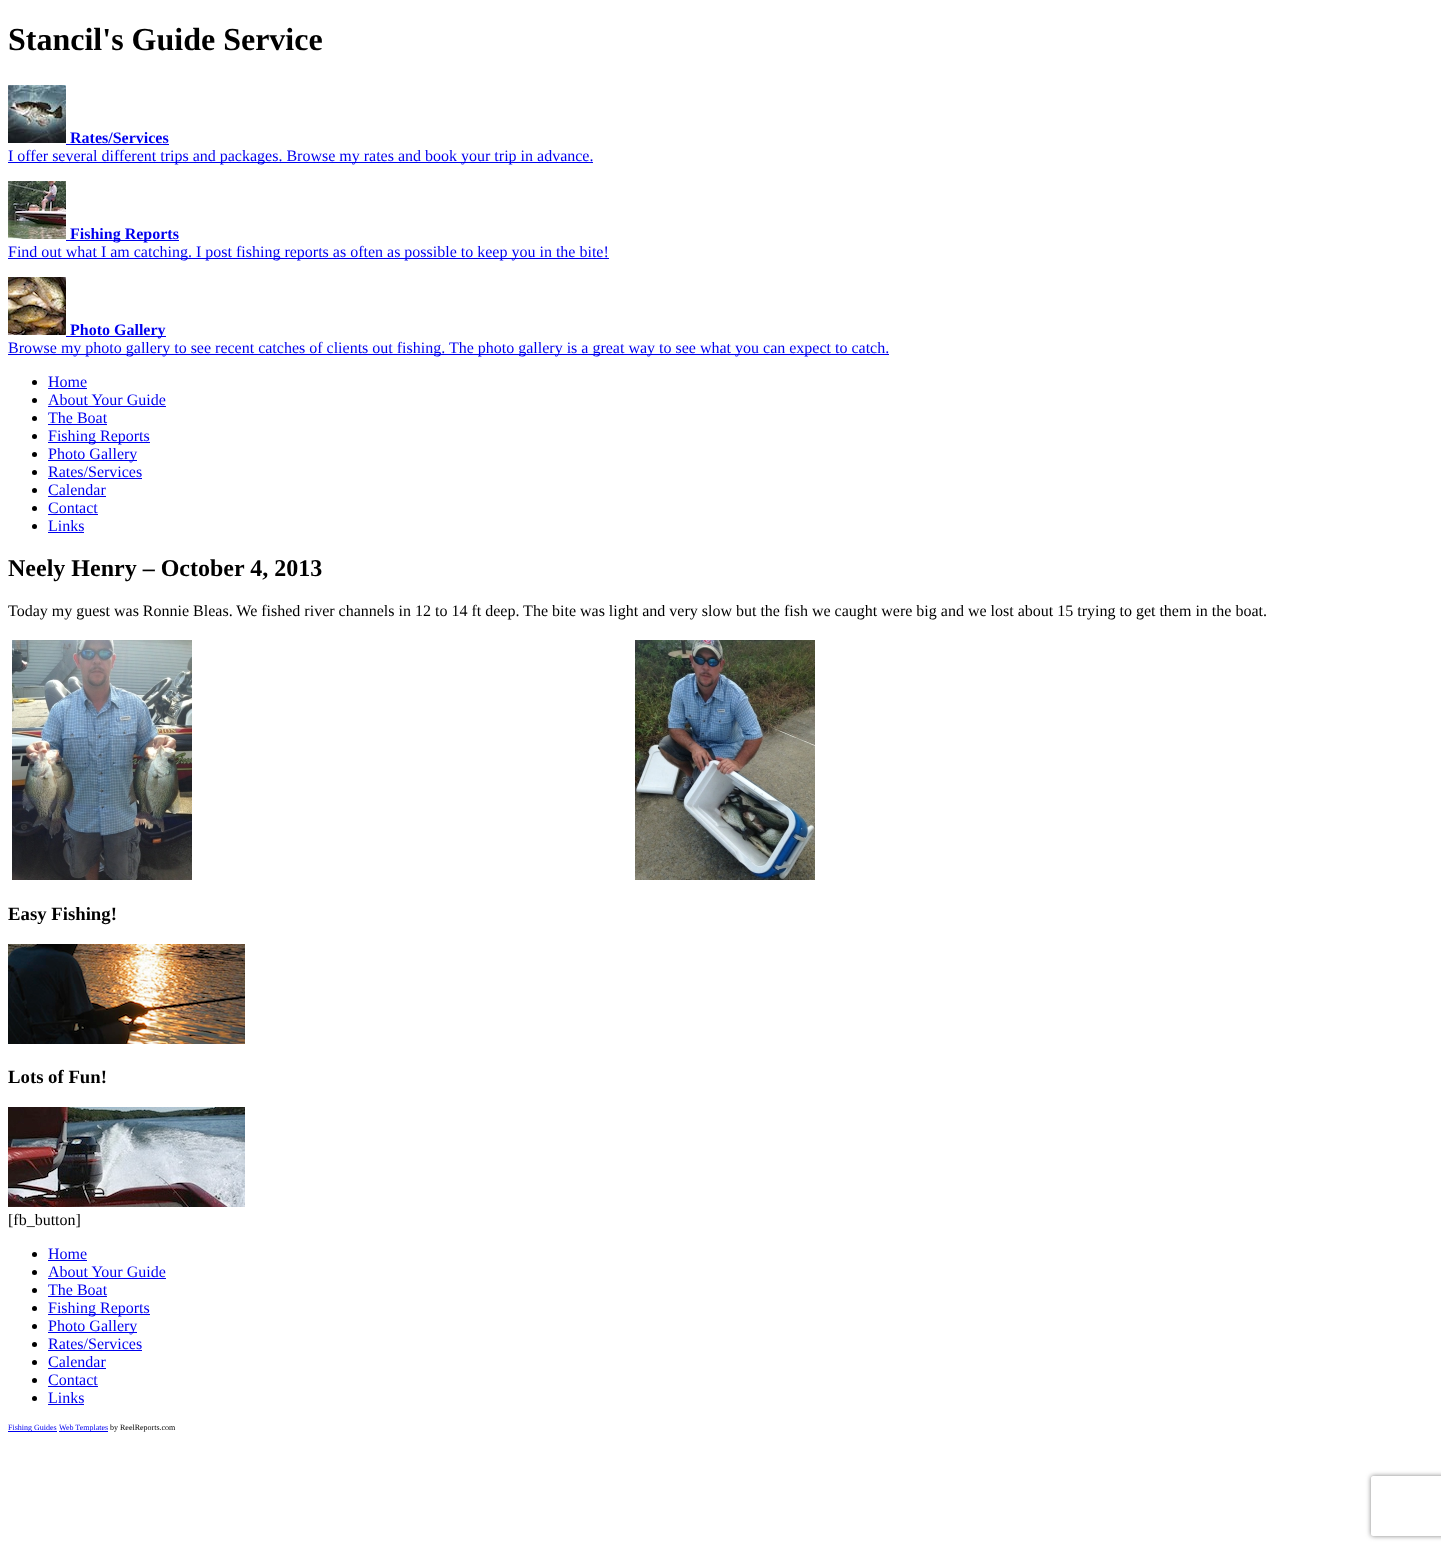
<!DOCTYPE html>
<meta charset="utf-8">
<style>body { margin: 0 } canvas { display: block }</style>
<canvas id="canvas" width="1441" height="1550"></canvas>
<img id="img1" src="images/1.png" hidden>
<img id="img2" src="images/2.png" hidden>
<img id="img3" src="images/3.png" hidden>
<img id="img4" src="images/4.png" hidden>
<img id="img5" src="images/5.png" hidden>
<img id="img6" src="images/6.png" hidden>
<img id="img7" src="images/7.png" hidden>
<script>
window.onload = function () {
    const canvas = document.getElementById('canvas');
    const context = canvas.getContext('2d');
    context.miterLimit = 4;
    context.fontKerning = 'normal';

    context.fillStyle = 'rgb(255, 255, 255)';
    context.fillRect(0, 0, 1441, 1550);
    context.drawImage(document.getElementById('img1'), 8, 85, 58, 58);
    context.fillStyle = 'rgb(0, 0, 238)';
    context.fillRect(66, 144, 103, 1);
    context.fillRect(8, 162, 585, 1);
    context.drawImage(document.getElementById('img2'), 8, 181, 58, 58);
    context.fillRect(66, 240, 113, 1);
    context.fillRect(8, 258, 601, 1);
    context.drawImage(document.getElementById('img3'), 8, 277, 58, 58);
    context.fillRect(66, 336, 100, 1);
    context.fillRect(8, 354, 881, 1);
    context.fillStyle = 'rgb(0, 0, 0)';
    context.beginPath();
    context.arc(34.5, 382.5, 2.5, 0, 2 * Math.PI);
    context.fill();
    context.fillStyle = 'rgb(0, 0, 238)';
    context.fillRect(48, 388, 39, 1);
    context.fillStyle = 'rgb(0, 0, 0)';
    context.beginPath();
    context.arc(34.5, 400.5, 2.5, 0, 2 * Math.PI);
    context.fill();
    context.fillStyle = 'rgb(0, 0, 238)';
    context.fillRect(48, 406, 118, 1);
    context.fillStyle = 'rgb(0, 0, 0)';
    context.beginPath();
    context.arc(34.5, 418.5, 2.5, 0, 2 * Math.PI);
    context.fill();
    context.fillStyle = 'rgb(0, 0, 238)';
    context.fillRect(48, 424, 59, 1);
    context.fillStyle = 'rgb(0, 0, 0)';
    context.beginPath();
    context.arc(34.5, 436.5, 2.5, 0, 2 * Math.PI);
    context.fill();
    context.fillStyle = 'rgb(0, 0, 238)';
    context.fillRect(48, 442, 102, 1);
    context.fillStyle = 'rgb(0, 0, 0)';
    context.beginPath();
    context.arc(34.5, 454.5, 2.5, 0, 2 * Math.PI);
    context.fill();
    context.fillStyle = 'rgb(0, 0, 238)';
    context.fillRect(48, 460, 89, 1);
    context.fillStyle = 'rgb(0, 0, 0)';
    context.beginPath();
    context.arc(34.5, 472.5, 2.5, 0, 2 * Math.PI);
    context.fill();
    context.fillStyle = 'rgb(0, 0, 238)';
    context.fillRect(48, 478, 94, 1);
    context.fillStyle = 'rgb(0, 0, 0)';
    context.beginPath();
    context.arc(34.5, 490.5, 2.5, 0, 2 * Math.PI);
    context.fill();
    context.fillStyle = 'rgb(0, 0, 238)';
    context.fillRect(48, 496, 58, 1);
    context.fillStyle = 'rgb(0, 0, 0)';
    context.beginPath();
    context.arc(34.5, 508.5, 2.5, 0, 2 * Math.PI);
    context.fill();
    context.fillStyle = 'rgb(0, 0, 238)';
    context.fillRect(48, 514, 50, 1);
    context.fillStyle = 'rgb(0, 0, 0)';
    context.beginPath();
    context.arc(34.5, 526.5, 2.5, 0, 2 * Math.PI);
    context.fill();
    context.fillStyle = 'rgb(0, 0, 238)';
    context.fillRect(48, 532, 36, 1);
    context.drawImage(document.getElementById('img4'), 12, 640, 180, 240);
    context.drawImage(document.getElementById('img5'), 635, 640, 180, 240);
    context.drawImage(document.getElementById('img6'), 8, 944, 237, 100);
    context.drawImage(document.getElementById('img7'), 8, 1107, 237, 100);
    context.fillStyle = 'rgb(0, 0, 0)';
    context.beginPath();
    context.arc(34.5, 1254.5, 2.5, 0, 2 * Math.PI);
    context.fill();
    context.fillStyle = 'rgb(0, 0, 238)';
    context.fillRect(48, 1260, 39, 1);
    context.fillStyle = 'rgb(0, 0, 0)';
    context.beginPath();
    context.arc(34.5, 1272.5, 2.5, 0, 2 * Math.PI);
    context.fill();
    context.fillStyle = 'rgb(0, 0, 238)';
    context.fillRect(48, 1278, 118, 1);
    context.fillStyle = 'rgb(0, 0, 0)';
    context.beginPath();
    context.arc(34.5, 1290.5, 2.5, 0, 2 * Math.PI);
    context.fill();
    context.fillStyle = 'rgb(0, 0, 238)';
    context.fillRect(48, 1296, 59, 1);
    context.fillStyle = 'rgb(0, 0, 0)';
    context.beginPath();
    context.arc(34.5, 1308.5, 2.5, 0, 2 * Math.PI);
    context.fill();
    context.fillStyle = 'rgb(0, 0, 238)';
    context.fillRect(48, 1314, 102, 1);
    context.fillStyle = 'rgb(0, 0, 0)';
    context.beginPath();
    context.arc(34.5, 1326.5, 2.5, 0, 2 * Math.PI);
    context.fill();
    context.fillStyle = 'rgb(0, 0, 238)';
    context.fillRect(48, 1332, 89, 1);
    context.fillStyle = 'rgb(0, 0, 0)';
    context.beginPath();
    context.arc(34.5, 1344.5, 2.5, 0, 2 * Math.PI);
    context.fill();
    context.fillStyle = 'rgb(0, 0, 238)';
    context.fillRect(48, 1350, 94, 1);
    context.fillStyle = 'rgb(0, 0, 0)';
    context.beginPath();
    context.arc(34.5, 1362.5, 2.5, 0, 2 * Math.PI);
    context.fill();
    context.fillStyle = 'rgb(0, 0, 238)';
    context.fillRect(48, 1368, 58, 1);
    context.fillStyle = 'rgb(0, 0, 0)';
    context.beginPath();
    context.arc(34.5, 1380.5, 2.5, 0, 2 * Math.PI);
    context.fill();
    context.fillStyle = 'rgb(0, 0, 238)';
    context.fillRect(48, 1386, 50, 1);
    context.fillStyle = 'rgb(0, 0, 0)';
    context.beginPath();
    context.arc(34.5, 1398.5, 2.5, 0, 2 * Math.PI);
    context.fill();
    context.fillStyle = 'rgb(0, 0, 238)';
    context.fillRect(48, 1404, 36, 1);
    context.fillRect(8, 1431, 49, 1);
    context.fillRect(59, 1431, 49, 1);
    context.save();
    context.beginPath();
    context.moveTo(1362, 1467);
    context.lineTo(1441, 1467);
    context.lineTo(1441, 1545);
    context.lineTo(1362, 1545);
    context.closePath();
    context.moveTo(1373, 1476);
    context.lineTo(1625, 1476);
    context.bezierCurveTo(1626, 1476, 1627, 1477, 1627, 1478);
    context.lineTo(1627, 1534);
    context.bezierCurveTo(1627, 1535, 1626, 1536, 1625, 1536);
    context.lineTo(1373, 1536);
    context.bezierCurveTo(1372, 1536, 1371, 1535, 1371, 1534);
    context.lineTo(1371, 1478);
    context.bezierCurveTo(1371, 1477, 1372, 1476, 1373, 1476);
    context.closePath();
    context.clip('evenodd');
    context.fillStyle = 'rgb(128, 128, 128)';
    context.filter = 'blur(2.5px)';
    context.beginPath();
    context.roundRect(1371, 1476, 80, 60, 2);
    context.fill();
    context.filter = 'none';
    context.restore();
    context.font = 'bold 32px Liberation Serif';
    context.fillStyle = 'rgb(0, 0, 0)';
    context.fillText('Stancil\'s Guide Service', 8, 50);
    context.font = 'bold 16px Liberation Serif';
    context.fillStyle = 'rgb(0, 0, 238)';
    context.fillText('Rates/Services', 70, 143);
    context.font = '16px Liberation Serif';
    context.fillText('I offer several different trips and packages. Browse my rates and book your trip in advance.', 8, 161);
    context.font = 'bold 16px Liberation Serif';
    context.fillText('Fishing Reports', 70, 239);
    context.font = '16px Liberation Serif';
    context.fillText('Find out what I am catching. I post fishing reports as often as possible to keep you in the bite!', 8, 257);
    context.font = 'bold 16px Liberation Serif';
    context.fillText('Photo Gallery', 70, 335);
    context.font = '16px Liberation Serif';
    context.fillText('Browse my photo gallery to see recent catches of clients out fishing. The photo gallery is a great way to see what you can expect to catch.', 8, 353);
    context.fillText('Home', 48, 387);
    context.fillText('About Your Guide', 48, 405);
    context.fillText('The Boat', 48, 423);
    context.fillText('Fishing Reports', 48, 441);
    context.fillText('Photo Gallery', 48, 459);
    context.fillText('Rates/Services', 48, 477);
    context.fillText('Calendar', 48, 495);
    context.fillText('Contact', 48, 513);
    context.fillText('Links', 48, 531);
    context.font = 'bold 24px Liberation Serif';
    context.fillStyle = 'rgb(0, 0, 0)';
    context.fillText('Neely Henry – October 4, 2013', 8, 576);
    context.font = '16px Liberation Serif';
    context.fillText('Today my guest was Ronnie Bleas. We fished river channels in 12 to 14 ft deep. The bite was light and very slow but the fish we caught were big and we lost about 15 trying to get them in the boat.', 8, 616);
    context.font = 'bold 18.75px Liberation Serif';
    context.fillText('Easy Fishing!', 8, 920);
    context.fillText('Lots of Fun!', 8, 1083);
    context.font = '16px Liberation Serif';
    context.fillText('[fb_button]', 8, 1225);
    context.fillStyle = 'rgb(0, 0, 238)';
    context.fillText('Home', 48, 1259);
    context.fillText('About Your Guide', 48, 1277);
    context.fillText('The Boat', 48, 1295);
    context.fillText('Fishing Reports', 48, 1313);
    context.fillText('Photo Gallery', 48, 1331);
    context.fillText('Rates/Services', 48, 1349);
    context.fillText('Calendar', 48, 1367);
    context.fillText('Contact', 48, 1385);
    context.fillText('Links', 48, 1403);
    context.font = '8px Liberation Serif';
    context.fillText('Fishing Guides', 8, 1430);
    context.fillText('Web Templates', 59, 1430);
    context.fillStyle = 'rgb(0, 0, 0)';
    context.fillText('by ReelReports.com', 110, 1430);
};
</script>
